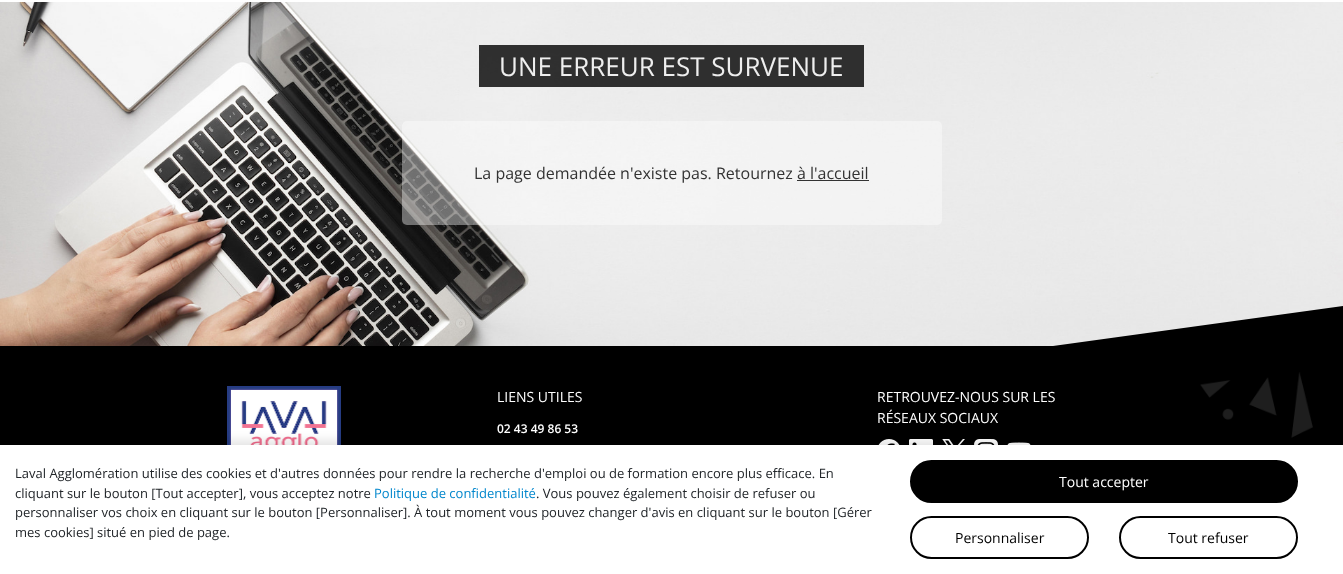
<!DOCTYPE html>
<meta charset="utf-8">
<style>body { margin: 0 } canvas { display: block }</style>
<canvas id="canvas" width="1343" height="574"></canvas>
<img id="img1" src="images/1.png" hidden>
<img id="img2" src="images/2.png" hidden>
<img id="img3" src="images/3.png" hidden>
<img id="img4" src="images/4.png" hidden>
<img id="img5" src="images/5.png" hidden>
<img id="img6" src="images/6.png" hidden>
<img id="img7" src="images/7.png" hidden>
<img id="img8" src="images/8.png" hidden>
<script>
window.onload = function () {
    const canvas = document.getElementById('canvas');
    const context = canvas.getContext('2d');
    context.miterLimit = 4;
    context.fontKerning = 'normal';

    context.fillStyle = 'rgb(255, 255, 255)';
    context.fillRect(0, 0, 1343, 574);
    context.drawImage(document.getElementById('img1'), 0, 2, 1343, 344);
    context.fillStyle = 'rgba(0, 0, 0, 0.8)';
    context.fillRect(479, 45, 385, 42);
    context.fillStyle = 'rgba(255, 255, 255, 0.4)';
    context.beginPath();
    context.roundRect(402, 121, 540, 104, 5);
    context.fill();
    context.fillStyle = 'rgb(51, 51, 51)';
    context.fillRect(797, 180, 72, 1);
    context.fillStyle = 'rgb(0, 0, 0)';
    context.fillRect(0, 346, 1343, 99);
    context.drawImage(document.getElementById('img2'), 1200, 372, 113, 66);
    context.beginPath();
    context.moveTo(1343, 346);
    context.lineTo(1053, 346);
    context.lineTo(1343, 306);
    context.closePath();
    context.fill();
    context.drawImage(document.getElementById('img3'), 227, 386, 114, 59);
    context.drawImage(document.getElementById('img4'), 878, 439, 22, 6);
    context.drawImage(document.getElementById('img5'), 909, 439, 24, 6);
    context.drawImage(document.getElementById('img6'), 942, 439, 23, 6);
    context.drawImage(document.getElementById('img7'), 974, 439, 24, 6);
    context.drawImage(document.getElementById('img8'), 1007, 442, 24, 3);
    context.fillStyle = 'rgba(0, 0, 0, 0.1)';
    context.filter = 'blur(5px)';
    context.beginPath();
    context.rect(0, 440, 1343, 129);
    context.fill();
    context.filter = 'none';
    context.fillStyle = 'rgb(255, 255, 255)';
    context.fillRect(0, 445, 1343, 129);
    context.fillStyle = 'rgb(0, 0, 0)';
    context.beginPath();
    context.roundRect(911, 461, 386, 41, 20.5);
    context.fill();
    context.strokeStyle = 'rgb(0, 0, 0)';
    context.lineWidth = 2;
    context.stroke();
    context.beginPath();
    context.roundRect(911, 517, 177, 41, 20.5);
    context.stroke();
    context.beginPath();
    context.roundRect(1120, 517, 177, 41, 20.5);
    context.stroke();
    context.font = '26px Open Sans';
    context.fillStyle = 'rgb(238, 238, 238)';
    context.fillText('UNE ERREUR EST SURVENUE', 499, 76);
    context.font = '16px Open Sans';
    context.fillStyle = 'rgb(51, 51, 51)';
    context.fillText('La page demandée n\'existe pas. Retournez à l\'accueil', 474, 179);
    context.font = '14px Open Sans';
    context.fillStyle = 'rgb(255, 255, 255)';
    context.fillText('LIENS UTILES', 497, 402);
    context.font = '600 12px Open Sans';
    context.fillText('02 43 49 86 53', 497, 433);
    context.font = '14px Open Sans';
    context.fillText('RETROUVEZ-NOUS SUR LES', 877, 402);
    context.fillText('RÉSEAUX SOCIAUX', 877, 423);
    context.font = '13px Open Sans';
    context.fillStyle = 'rgb(33, 37, 41)';
    context.fillText('Laval Agglomération utilise des cookies et d\'autres données pour rendre la recherche d\'emploi ou de formation encore plus efficace. En', 15, 478);
    context.fillText('cliquant sur le bouton [Tout accepter], vous acceptez notre', 15, 498);
    context.fillStyle = 'rgb(0, 134, 204)';
    context.fillText('Politique de confidentialité', 374, 498);
    context.fillStyle = 'rgb(33, 37, 41)';
    context.fillText('. Vous pouvez également choisir de refuser ou', 536, 498);
    context.fillText('personnaliser vos choix en cliquant sur le bouton [Personnaliser]. À tout moment vous pouvez changer d\'avis en cliquant sur le bouton [Gérer', 15, 517);
    context.fillText('mes cookies] situé en pied de page.', 15, 537);
    context.font = '14px Open Sans';
    context.fillStyle = 'rgb(255, 255, 255)';
    context.fillText('Tout accepter', 1059, 487);
    context.fillStyle = 'rgb(0, 0, 0)';
    context.fillText('Personnaliser', 955, 543);
    context.fillText('Tout refuser', 1168, 543);
};
</script>
